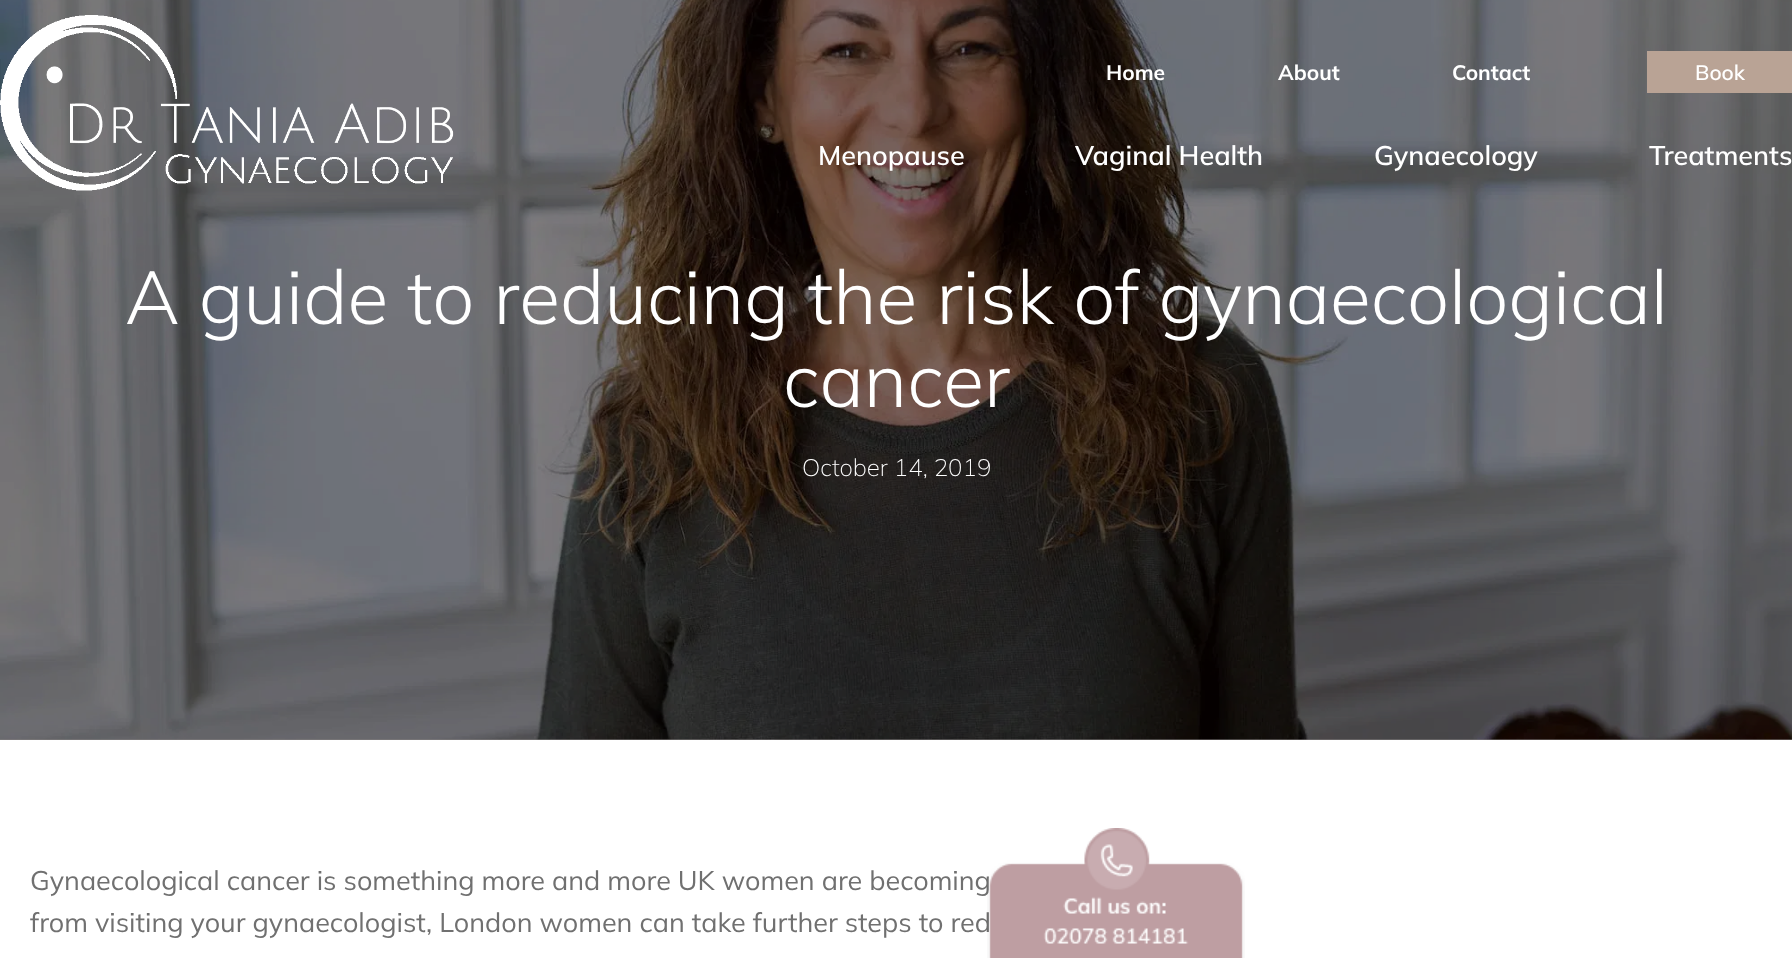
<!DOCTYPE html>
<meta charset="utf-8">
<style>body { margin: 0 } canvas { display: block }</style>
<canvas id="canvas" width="1792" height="958"></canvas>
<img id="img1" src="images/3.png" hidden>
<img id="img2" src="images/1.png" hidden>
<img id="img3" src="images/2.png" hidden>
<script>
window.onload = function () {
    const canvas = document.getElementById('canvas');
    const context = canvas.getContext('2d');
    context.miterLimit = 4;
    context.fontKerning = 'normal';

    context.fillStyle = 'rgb(255, 255, 255)';
    context.fillRect(0, 0, 1792, 958);
    context.fillStyle = 'rgb(133, 128, 128)';
    context.fillRect(0, 739, 1792, 1);
    context.drawImage(document.getElementById('img1'), 0, 0, 1792, 740);
    context.drawImage(document.getElementById('img2'), 0, 15, 454, 176);
    context.fillStyle = 'rgb(185, 163, 149)';
    context.fillRect(1647, 51, 145, 42);
    context.font = '200 21px "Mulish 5"';
    context.fillStyle = 'rgb(255, 255, 255)';
    context.fillText('Home', 1106, 80);
    context.fillText('About', 1278, 80);
    context.fillText('Contact', 1452, 80);
    context.font = '200 21px "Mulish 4"';
    context.fillText('Book', 1695, 80);
    context.font = '200 27px "Mulish 4"';
    context.fillText('Menopause', 818, 165);
    context.fillText('Vaginal Health', 1075, 165);
    context.fillText('Gynaecology', 1374, 165);
    context.fillText('Treatments', 1649, 165);
    context.font = '200 75px "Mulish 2"';
    context.fillText('A guide to reducing the risk of gynaecological', 125, 324);
    context.fillText('cancer', 783, 407);
    context.font = '200 24px "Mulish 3"';
    context.fillText('October 14, 2019', 802, 476);
    context.font = '200 27px Mulish';
    context.fillStyle = 'rgb(112, 112, 112)';
    context.fillText('Gynaecological cancer is something more and more UK women are becoming', 30, 890);
    context.fillText('from visiting your gynaecologist, London women can take further steps to red', 30, 932);
    context.drawImage(document.getElementById('img3'), 987, 828, 258, 130);
};
</script>
